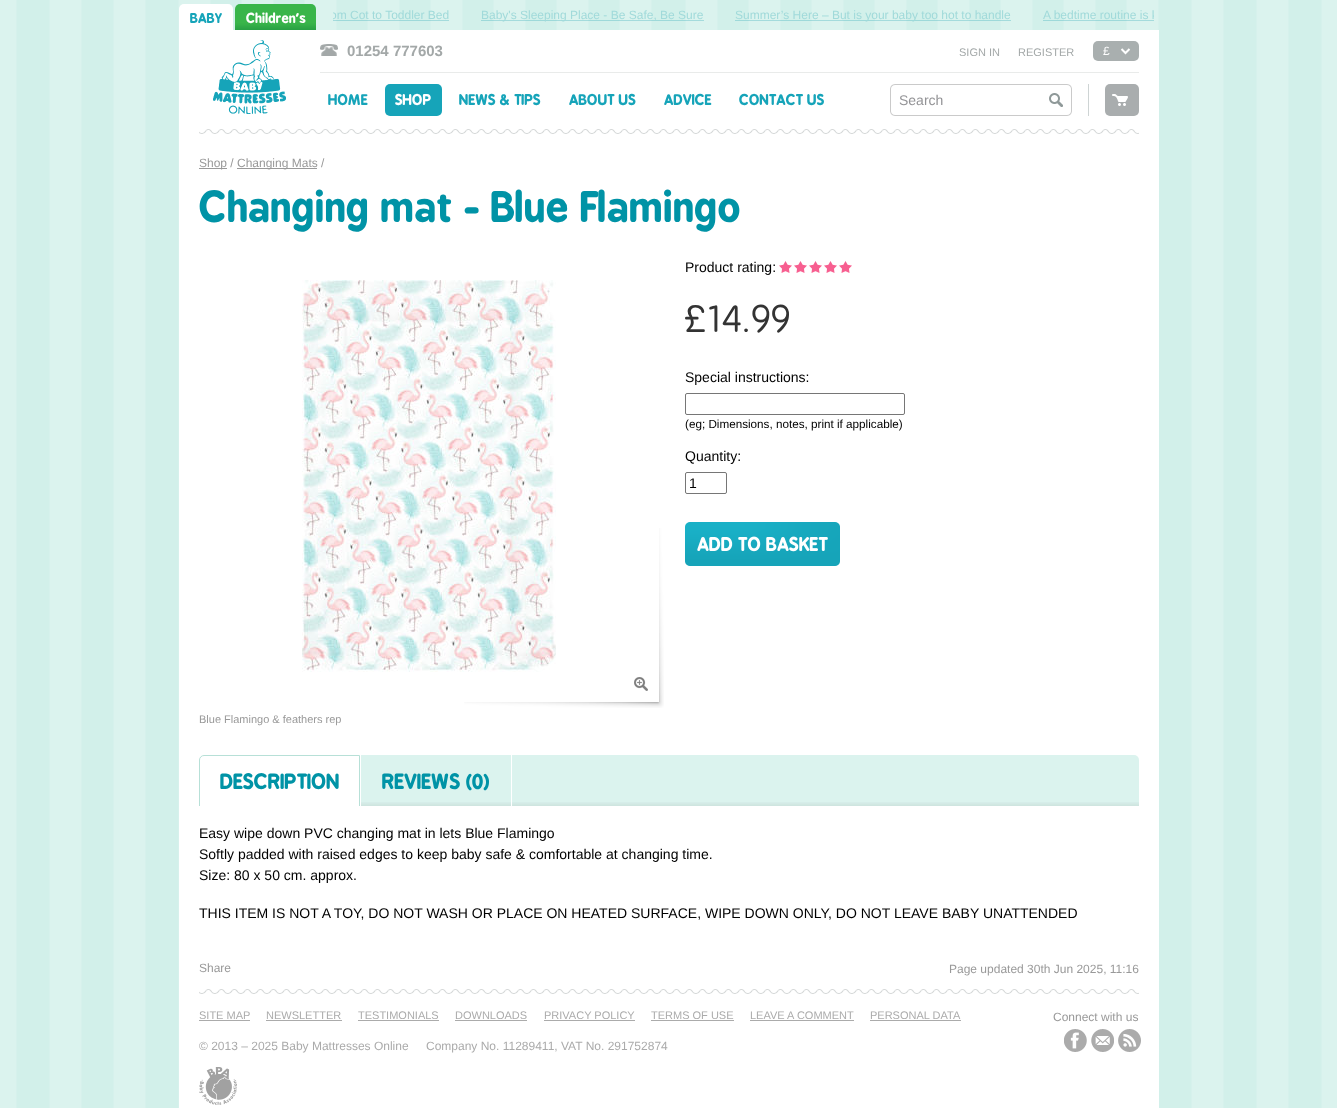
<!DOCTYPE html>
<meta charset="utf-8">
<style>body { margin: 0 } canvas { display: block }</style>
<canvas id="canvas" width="1337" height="1108"></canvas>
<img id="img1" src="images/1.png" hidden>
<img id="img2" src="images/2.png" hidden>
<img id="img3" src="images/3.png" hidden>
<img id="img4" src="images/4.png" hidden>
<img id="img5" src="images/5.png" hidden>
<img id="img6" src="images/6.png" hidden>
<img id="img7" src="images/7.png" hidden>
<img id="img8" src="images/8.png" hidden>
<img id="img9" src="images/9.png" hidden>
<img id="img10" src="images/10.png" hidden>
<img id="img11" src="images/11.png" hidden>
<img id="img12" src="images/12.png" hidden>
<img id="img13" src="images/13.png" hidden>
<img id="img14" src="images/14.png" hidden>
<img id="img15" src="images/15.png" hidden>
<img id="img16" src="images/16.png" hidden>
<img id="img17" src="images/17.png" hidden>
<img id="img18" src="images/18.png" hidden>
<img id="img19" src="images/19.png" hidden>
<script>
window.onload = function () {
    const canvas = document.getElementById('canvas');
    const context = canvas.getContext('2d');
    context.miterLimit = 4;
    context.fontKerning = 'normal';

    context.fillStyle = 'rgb(210, 240, 234)';
    context.fillRect(0, 0, 1337, 1108);
    context.drawImage(document.getElementById('img1'), 0, 0, 1337, 1108);
    context.fillStyle = 'rgb(255, 255, 255)';
    context.beginPath();
    context.roundRect(179, 4, 54, 26, [5, 5, 0, 0]);
    context.fill();
    context.drawImage(document.getElementById('img2'), 235, 4, 81, 26);
    context.fillStyle = 'rgba(0, 147, 166, 0.25)';
    context.fillRect(333, 20, 116, 1);
    context.fillRect(481, 20, 223, 1);
    context.fillRect(735, 20, 276, 1);
    context.fillRect(1043, 20, 111, 1);
    context.fillStyle = 'rgb(255, 255, 255)';
    context.fillRect(179, 30, 980, 1078);
    context.drawImage(document.getElementById('img3'), 213, 40, 73, 74);
    context.fillStyle = 'rgb(233, 235, 234)';
    context.fillRect(320, 72, 819, 1);
    context.drawImage(document.getElementById('img4'), 320, 44, 18, 12);
    context.fillStyle = 'rgb(169, 175, 175)';
    context.beginPath();
    context.roundRect(1093, 41, 46, 20, 5);
    context.fill();
    context.beginPath();
    context.moveTo(1121.5, 49);
    context.lineTo(1125.5, 53);
    context.lineTo(1129.5, 49);
    context.strokeStyle = 'rgb(255, 255, 255)';
    context.lineWidth = 2;
    context.stroke();
    context.fillStyle = 'rgb(22, 164, 185)';
    context.beginPath();
    context.roundRect(385, 84, 57, 32, 5);
    context.fill();
    context.drawImage(document.getElementById('img5'), 890, 84, 182, 32);
    context.drawImage(document.getElementById('img6'), 1049, 93, 14, 14);
    context.fillStyle = 'rgb(206, 212, 212)';
    context.fillRect(1088, 84, 1, 32);
    context.fillStyle = 'rgb(169, 173, 174)';
    context.beginPath();
    context.roundRect(1105, 84, 34, 32, 5);
    context.fill();
    context.drawImage(document.getElementById('img7'), 1112, 94, 16, 12);
    context.drawImage(document.getElementById('img8'), 199, 129, 940, 5);
    context.fillStyle = 'rgb(153, 153, 153)';
    context.fillRect(199, 168, 28, 1);
    context.fillRect(237, 168, 80, 1);
    context.drawImage(document.getElementById('img9'), 779, 261, 13, 12);
    context.drawImage(document.getElementById('img9'), 794, 261, 13, 12);
    context.drawImage(document.getElementById('img9'), 809, 261, 13, 12);
    context.drawImage(document.getElementById('img9'), 824, 261, 13, 12);
    context.drawImage(document.getElementById('img9'), 839, 261, 13, 12);
    context.beginPath();
    context.roundRect(685.5, 393.5, 219, 21, 1.5);
    context.strokeStyle = 'rgb(118, 118, 118)';
    context.lineWidth = 1;
    context.stroke();
    context.beginPath();
    context.roundRect(685.5, 472.5, 41, 21, 1.5);
    context.stroke();
    context.drawImage(document.getElementById('img10'), 685, 522, 155, 44);
    context.drawImage(document.getElementById('img11'), 464, 528, 200, 180);
    context.drawImage(document.getElementById('img12'), 302, 280, 254, 392);
    context.drawImage(document.getElementById('img13'), 634, 677, 14, 14);
    context.fillStyle = 'rgb(219, 243, 238)';
    context.beginPath();
    context.roundRect(199, 755, 940, 51, [0, 5, 0, 0]);
    context.fill();
    context.drawImage(document.getElementById('img14'), 512, 802, 627, 4);
    context.fillStyle = 'rgb(255, 255, 255)';
    context.fillRect(199, 755, 162, 51);
    context.save();
    context.beginPath();
    context.rect(199, 755, 940, 51);
    context.clip();
    context.beginPath();
    context.roundRect(199.5, 755.5, 160, 52, [4.5, 0, 0, 0]);
    context.strokeStyle = 'rgb(183, 224, 215)';
    context.stroke();
    context.restore();
    context.fillRect(511, 755, 1, 51);
    context.drawImage(document.getElementById('img15'), 361, 802, 150, 4);
    context.drawImage(document.getElementById('img8'), 199, 989, 940, 5);
    context.fillStyle = 'rgb(171, 171, 171)';
    context.fillRect(199, 1020, 51, 1);
    context.fillRect(266, 1020, 76, 1);
    context.fillRect(358, 1020, 81, 1);
    context.fillRect(455, 1020, 72, 1);
    context.fillRect(544, 1020, 91, 1);
    context.fillRect(651, 1020, 83, 1);
    context.fillRect(750, 1020, 104, 1);
    context.fillRect(870, 1020, 91, 1);
    context.drawImage(document.getElementById('img16'), 1064, 1029, 23, 23);
    context.drawImage(document.getElementById('img17'), 1091, 1029, 23, 23);
    context.drawImage(document.getElementById('img18'), 1118, 1029, 23, 23);
    context.drawImage(document.getElementById('img19'), 199, 1067, 38, 38);
    context.font = 'bold 13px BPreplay';
    context.fillStyle = 'rgb(22, 164, 185)';
    context.fillText('BABY', 190, 23);
    context.fillStyle = 'rgb(255, 255, 255)';
    context.fillText('Children\'s', 246, 23);
    context.save();
    context.beginPath();
    context.rect(333, 8, 821, 15);
    context.clip();
    context.font = '12px Liberation Sans';
    context.fillStyle = 'rgb(161, 218, 218)';
    context.fillText('om Cot to Toddler Bed', 330, 19);
    context.restore();
    context.font = '12px Liberation Sans';
    context.fillStyle = 'rgb(161, 218, 218)';
    context.fillText('Baby\'s Sleeping Place - Be Safe, Be Sure', 481, 19);
    context.fillText('Summer’s Here – But is your baby too hot to handle', 735, 19);
    context.save();
    context.beginPath();
    context.rect(333, 8, 821, 15);
    context.clip();
    context.fillText('A bedtime routine is k', 1043, 19);
    context.restore();
    context.font = 'bold 15px Liberation Sans';
    context.fillStyle = 'rgb(163, 168, 168)';
    context.fillText('01254 777603', 347, 56);
    context.font = '11px Liberation Sans';
    context.fillText('SIGN IN', 959, 56);
    context.fillText('REGISTER', 1018, 56);
    context.font = '12px Liberation Sans';
    context.fillStyle = 'rgb(255, 255, 255)';
    context.fillText('£', 1103, 55);
    context.font = 'bold 14px BPreplay';
    context.fillStyle = 'rgb(22, 164, 185)';
    context.fillText('HOME', 328, 105);
    context.fillStyle = 'rgb(255, 255, 255)';
    context.fillText('SHOP', 395, 105);
    context.fillStyle = 'rgb(22, 164, 185)';
    context.fillText('NEWS & TIPS', 459, 105);
    context.fillText('ABOUT US', 569, 105);
    context.fillText('ADVICE', 664, 105);
    context.fillText('CONTACT US', 739, 105);
    context.font = '14px Liberation Sans';
    context.fillStyle = 'rgb(147, 147, 150)';
    context.fillText('Search', 899, 105);
    context.font = '12px Liberation Sans';
    context.fillStyle = 'rgb(153, 153, 153)';
    context.fillText('Shop /', 199, 167);
    context.fillText('Changing Mats /', 237, 167);
    context.font = 'bold 40px BPreplay';
    context.fillStyle = 'rgb(0, 147, 166)';
    context.fillText('Changing mat - Blue Flamingo', 199, 222);
    context.font = '14px Liberation Sans';
    context.fillStyle = 'rgb(0, 0, 0)';
    context.fillText('Product rating:', 685, 272);
    context.font = '36px BPreplay';
    context.fillStyle = 'rgb(51, 51, 51)';
    context.fillText('£14.99', 685, 332);
    context.font = '14px Liberation Sans';
    context.fillStyle = 'rgb(0, 0, 0)';
    context.fillText('Special instructions:', 685, 382);
    context.font = '11.7px Liberation Sans';
    context.fillText('(eg; Dimensions, notes, print if applicable)', 685, 428);
    context.font = '14px Liberation Sans';
    context.fillText('Quantity:', 685, 461);
    context.fillText('1', 689, 488);
    context.font = '11px Liberation Sans';
    context.fillStyle = 'rgb(153, 153, 153)';
    context.fillText('Blue Flamingo & feathers rep', 199, 723);
    context.font = 'bold 20px BPreplay';
    context.fillStyle = 'rgb(0, 147, 166)';
    context.fillText('DESCRIPTION', 220, 789);
    context.fillText('REVIEWS (0)', 382, 789);
    context.font = '14px Liberation Sans';
    context.fillStyle = 'rgb(0, 0, 0)';
    context.fillText('Easy wipe down PVC changing mat in lets Blue Flamingo', 199, 838);
    context.fillText('Softly padded with raised edges to keep baby safe & comfortable at changing time.', 199, 859);
    context.fillText('Size: 80 x 50 cm. approx.', 199, 880);
    context.fillText('THIS ITEM IS NOT A TOY, DO NOT WASH OR PLACE ON HEATED SURFACE, WIPE DOWN ONLY, DO NOT LEAVE BABY UNATTENDED', 199, 918);
    context.font = '12px Liberation Sans';
    context.fillStyle = 'rgb(153, 153, 153)';
    context.fillText('Share', 199, 972);
    context.fillText('Page updated 30th Jun 2025, 11:16', 949, 973);
    context.font = '11px Liberation Sans';
    context.fillStyle = 'rgb(171, 171, 171)';
    context.fillText('SITE MAP', 199, 1019);
    context.fillText('NEWSLETTER', 266, 1019);
    context.fillText('TESTIMONIALS', 358, 1019);
    context.fillText('DOWNLOADS', 455, 1019);
    context.fillText('PRIVACY POLICY', 544, 1019);
    context.fillText('TERMS OF USE', 651, 1019);
    context.fillText('LEAVE A COMMENT', 750, 1019);
    context.fillText('PERSONAL DATA', 870, 1019);
    context.font = '12px Liberation Sans';
    context.fillStyle = 'rgb(153, 153, 153)';
    context.fillText('Connect with us', 1053, 1021);
    context.fillStyle = 'rgb(171, 171, 171)';
    context.fillText('© 2013 – 2025 Baby Mattresses Online', 199, 1050);
    context.fillText('Company No. 11289411, VAT No. 291752874', 426, 1050);
};
</script>
